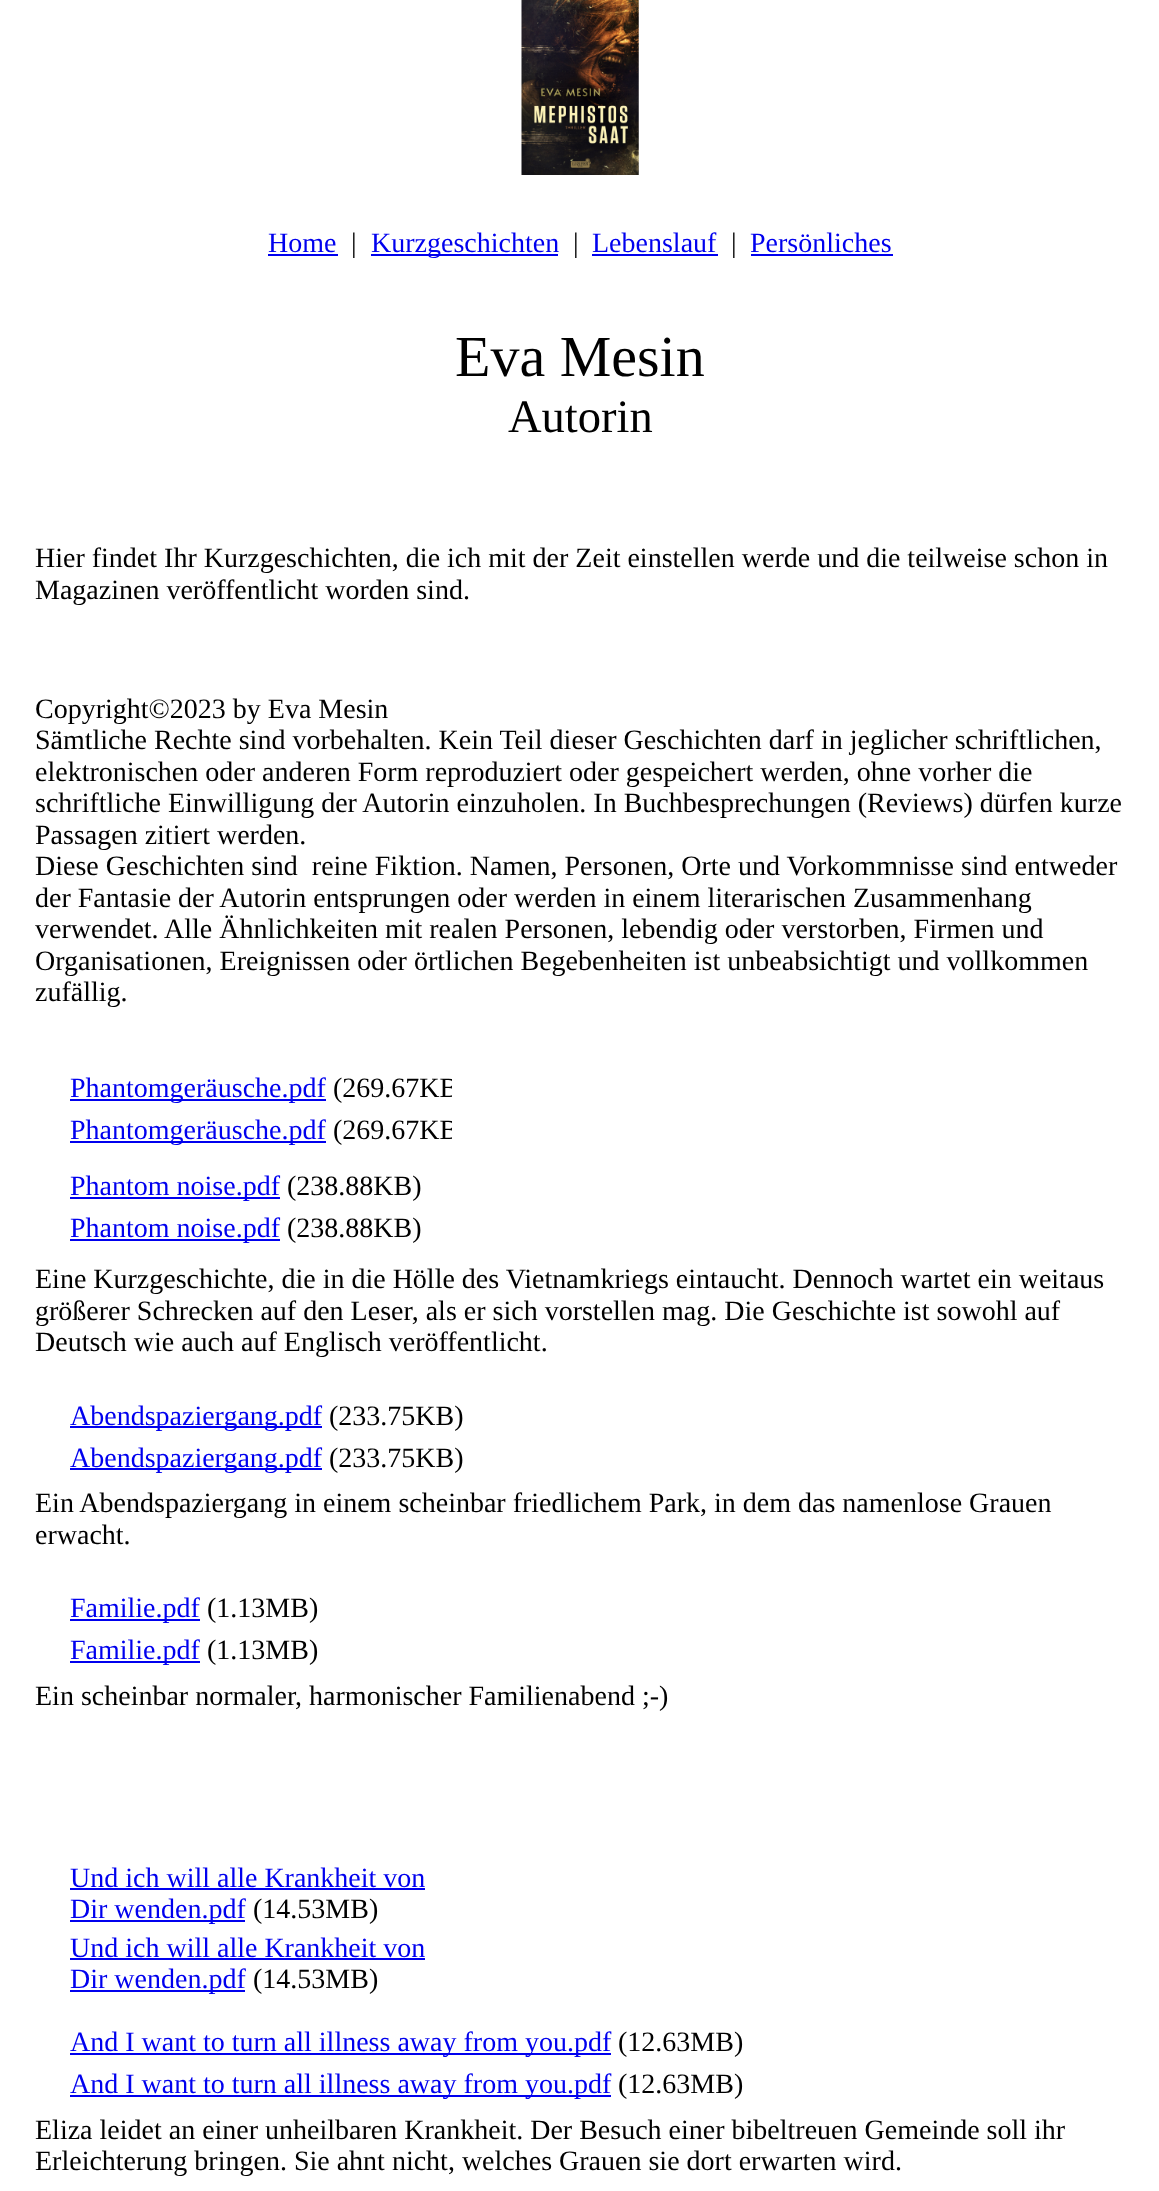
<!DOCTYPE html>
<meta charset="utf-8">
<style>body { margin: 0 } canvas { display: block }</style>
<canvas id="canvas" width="1159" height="2191"></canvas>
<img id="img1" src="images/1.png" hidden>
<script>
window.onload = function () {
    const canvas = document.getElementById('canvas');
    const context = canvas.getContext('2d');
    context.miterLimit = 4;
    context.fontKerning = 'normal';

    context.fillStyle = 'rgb(255, 255, 255)';
    context.fillRect(0, 0, 1159, 2191);
    context.drawImage(document.getElementById('img1'), 521, 0, 118, 175);
    context.fillStyle = 'rgb(0, 0, 238)';
    context.fillRect(268, 254, 70, 2);
    context.fillRect(371, 254, 187, 2);
    context.fillRect(592, 254, 126, 2);
    context.fillRect(751, 254, 142, 2);
    context.fillRect(70, 1099, 256, 2);
    context.fillRect(70, 1141, 256, 2);
    context.fillRect(70, 1197, 210, 2);
    context.fillRect(70, 1239, 210, 2);
    context.fillRect(70, 1426, 252, 2);
    context.fillRect(70, 1468, 252, 2);
    context.fillRect(70, 1619, 130, 2);
    context.fillRect(70, 1661, 130, 2);
    context.fillRect(70, 1888, 355, 2);
    context.fillRect(70, 1920, 175, 2);
    context.fillRect(70, 1958, 355, 2);
    context.fillRect(70, 1990, 175, 2);
    context.fillRect(70, 2053, 541, 2);
    context.fillRect(70, 2095, 541, 2);
    context.font = '28px Liberation Serif';
    context.fillText('Home', 268, 252);
    context.fillStyle = 'rgb(0, 0, 0)';
    context.fillText('|', 351, 252);
    context.fillStyle = 'rgb(0, 0, 238)';
    context.fillText('Kurzgeschichten', 371, 252);
    context.fillStyle = 'rgb(0, 0, 0)';
    context.fillText('|', 573, 252);
    context.fillStyle = 'rgb(0, 0, 238)';
    context.fillText('Lebenslauf', 592, 252);
    context.fillStyle = 'rgb(0, 0, 0)';
    context.fillText('|', 731, 252);
    context.fillStyle = 'rgb(0, 0, 238)';
    context.fillText('Persönliches', 750, 252);
    context.font = '58px Liberation Serif';
    context.fillStyle = 'rgb(0, 0, 0)';
    context.fillText('Eva Mesin', 455, 376);
    context.font = '46.5px Liberation Serif';
    context.fillText('Autorin', 508, 432);
    context.font = '28px Liberation Serif';
    context.fillText('Hier findet Ihr Kurzgeschichten, die ich mit der Zeit einstellen werde und die teilweise schon in', 35, 567);
    context.fillText('Magazinen veröffentlicht worden sind.', 35, 599);
    context.fillText('Copyright©2023 by Eva Mesin', 35, 718);
    context.fillText('Sämtliche Rechte sind vorbehalten. Kein Teil dieser Geschichten darf in jeglicher schriftlichen,', 35, 749);
    context.fillText('elektronischen oder anderen Form reproduziert oder gespeichert werden, ohne vorher die', 35, 781);
    context.fillText('schriftliche Einwilligung der Autorin einzuholen. In Buchbesprechungen (Reviews) dürfen kurze', 35, 812);
    context.fillText('Passagen zitiert werden.', 35, 844);
    context.fillText('Diese Geschichten sind  reine Fiktion. Namen, Personen, Orte und Vorkommnisse sind entweder', 35, 875);
    context.fillText('der Fantasie der Autorin entsprungen oder werden in einem literarischen Zusammenhang', 35, 907);
    context.fillText('verwendet. Alle Ähnlichkeiten mit realen Personen, lebendig oder verstorben, Firmen und', 35, 938);
    context.fillText('Organisationen, Ereignissen oder örtlichen Begebenheiten ist unbeabsichtigt und vollkommen', 35, 970);
    context.fillText('zufällig.', 35, 1001);
    context.fillStyle = 'rgb(0, 0, 238)';
    context.fillText('Phantomgeräusche.pdf', 70, 1097);
    context.save();
    context.beginPath();
    context.rect(35, 1068, 417, 84);
    context.clip();
    context.fillStyle = 'rgb(0, 0, 0)';
    context.fillText('(269.67KB', 333, 1097);
    context.restore();
    context.fillText('Phantomgeräusche.pdf', 70, 1139);
    context.save();
    context.beginPath();
    context.rect(35, 1068, 417, 84);
    context.clip();
    context.fillStyle = 'rgb(0, 0, 0)';
    context.fillText('(269.67KB', 333, 1139);
    context.restore();
    context.fillText('Phantom noise.pdf', 70, 1195);
    context.fillStyle = 'rgb(0, 0, 0)';
    context.fillText('(238.88KB)', 287, 1195);
    context.fillStyle = 'rgb(0, 0, 238)';
    context.fillText('Phantom noise.pdf', 70, 1237);
    context.fillStyle = 'rgb(0, 0, 0)';
    context.fillText('(238.88KB)', 287, 1237);
    context.fillText('Eine Kurzgeschichte, die in die Hölle des Vietnamkriegs eintaucht. Dennoch wartet ein weitaus', 35, 1288);
    context.fillText('größerer Schrecken auf den Leser, als er sich vorstellen mag. Die Geschichte ist sowohl auf', 35, 1320);
    context.fillText('Deutsch wie auch auf Englisch veröffentlicht.', 35, 1351);
    context.fillStyle = 'rgb(0, 0, 238)';
    context.fillText('Abendspaziergang.pdf', 70, 1425);
    context.fillStyle = 'rgb(0, 0, 0)';
    context.fillText('(233.75KB)', 329, 1425);
    context.fillStyle = 'rgb(0, 0, 238)';
    context.fillText('Abendspaziergang.pdf', 70, 1467);
    context.fillStyle = 'rgb(0, 0, 0)';
    context.fillText('(233.75KB)', 329, 1467);
    context.fillText('Ein Abendspaziergang in einem scheinbar friedlichem Park, in dem das namenlose Grauen', 35, 1512);
    context.fillText('erwacht.', 35, 1544);
    context.fillStyle = 'rgb(0, 0, 238)';
    context.fillText('Familie.pdf', 70, 1617);
    context.fillStyle = 'rgb(0, 0, 0)';
    context.fillText('(1.13MB)', 207, 1617);
    context.fillStyle = 'rgb(0, 0, 238)';
    context.fillText('Familie.pdf', 70, 1659);
    context.fillStyle = 'rgb(0, 0, 0)';
    context.fillText('(1.13MB)', 207, 1659);
    context.fillText('Ein scheinbar normaler, harmonischer Familienabend ;-)', 35, 1705);
    context.fillStyle = 'rgb(0, 0, 238)';
    context.fillText('Und ich will alle Krankheit von', 70, 1887);
    context.fillText('Dir wenden.pdf', 70, 1918);
    context.fillStyle = 'rgb(0, 0, 0)';
    context.fillText('(14.53MB)', 253, 1918);
    context.fillStyle = 'rgb(0, 0, 238)';
    context.fillText('Und ich will alle Krankheit von', 70, 1957);
    context.fillText('Dir wenden.pdf', 70, 1988);
    context.fillStyle = 'rgb(0, 0, 0)';
    context.fillText('(14.53MB)', 253, 1988);
    context.fillStyle = 'rgb(0, 0, 238)';
    context.fillText('And I want to turn all illness away from you.pdf', 70, 2051);
    context.fillStyle = 'rgb(0, 0, 0)';
    context.fillText('(12.63MB)', 618, 2051);
    context.fillStyle = 'rgb(0, 0, 238)';
    context.fillText('And I want to turn all illness away from you.pdf', 70, 2093);
    context.fillStyle = 'rgb(0, 0, 0)';
    context.fillText('(12.63MB)', 618, 2093);
    context.fillText('Eliza leidet an einer unheilbaren Krankheit. Der Besuch einer bibeltreuen Gemeinde soll ihr', 35, 2139);
    context.fillText('Erleichterung bringen. Sie ahnt nicht, welches Grauen sie dort erwarten wird.', 35, 2170);
};
</script>
